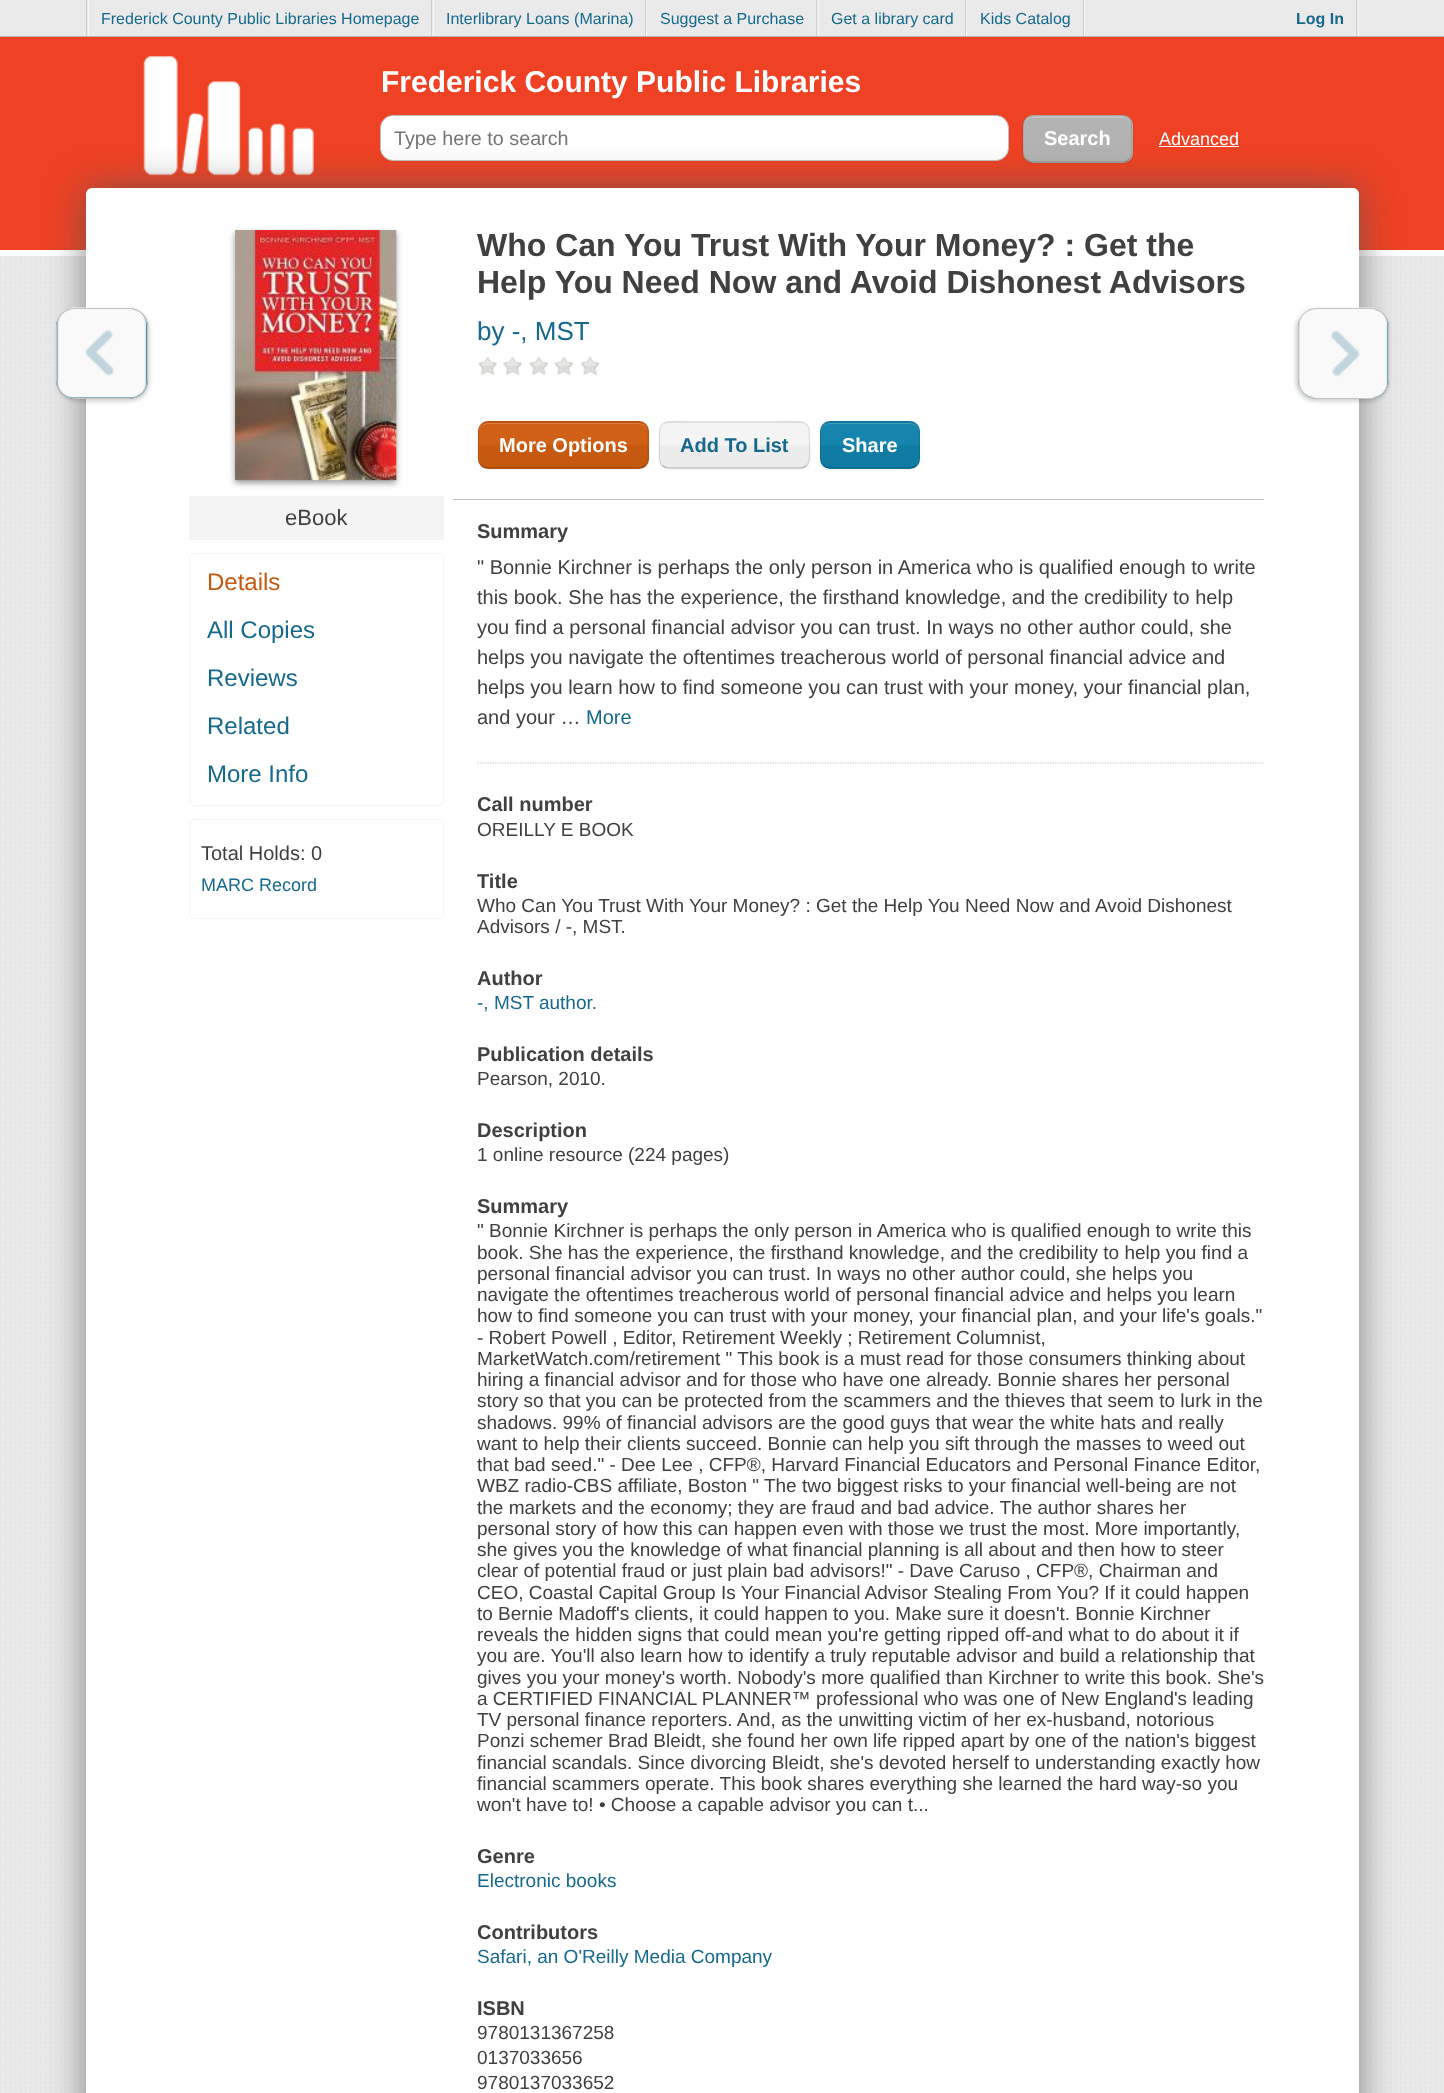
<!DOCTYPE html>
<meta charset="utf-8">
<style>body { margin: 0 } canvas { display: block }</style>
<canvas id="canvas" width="1444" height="2093"></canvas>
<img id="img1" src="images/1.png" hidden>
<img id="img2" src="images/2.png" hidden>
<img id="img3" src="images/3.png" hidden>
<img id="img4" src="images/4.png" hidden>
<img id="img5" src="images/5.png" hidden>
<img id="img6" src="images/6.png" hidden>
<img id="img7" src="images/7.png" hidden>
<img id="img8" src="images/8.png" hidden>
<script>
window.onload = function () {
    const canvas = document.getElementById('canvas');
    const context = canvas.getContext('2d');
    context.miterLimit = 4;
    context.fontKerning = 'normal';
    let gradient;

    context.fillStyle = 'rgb(234, 234, 234)';
    context.fillRect(0, 0, 1444, 2093);
    context.fillStyle = 'rgb(206, 206, 206)';
    context.fillRect(86, 0, 1, 36);
    context.fillStyle = 'rgb(248, 248, 248)';
    context.fillRect(433, 0, 1, 36);
    context.fillRect(88, 0, 1, 36);
    context.fillStyle = 'rgb(206, 206, 206)';
    context.fillRect(431, 0, 1, 36);
    context.fillStyle = 'rgb(248, 248, 248)';
    context.fillRect(646, 0, 1, 36);
    context.fillStyle = 'rgb(206, 206, 206)';
    context.fillRect(645, 0, 1, 36);
    context.fillStyle = 'rgb(248, 248, 248)';
    context.fillRect(818, 0, 1, 36);
    context.fillStyle = 'rgb(206, 206, 206)';
    context.fillRect(816, 0, 1, 36);
    context.fillStyle = 'rgb(248, 248, 248)';
    context.fillRect(966, 0, 1, 36);
    context.fillStyle = 'rgb(206, 206, 206)';
    context.fillRect(965, 0, 1, 36);
    context.fillStyle = 'rgb(248, 248, 248)';
    context.fillRect(1084, 0, 1, 36);
    context.fillStyle = 'rgb(206, 206, 206)';
    context.fillRect(1083, 0, 1, 36);
    context.fillStyle = 'rgb(248, 248, 248)';
    context.fillRect(1358, 0, 1, 36);
    context.fillStyle = 'rgb(206, 206, 206)';
    context.fillRect(1356, 0, 1, 36);
    context.fillStyle = 'rgb(239, 65, 35)';
    context.fillRect(0, 37, 1444, 213);
    context.fillStyle = 'rgb(180, 180, 180)';
    context.fillRect(0, 36, 1444, 1);
    context.fillStyle = 'rgb(255, 255, 255)';
    context.fillRect(0, 250, 1444, 6);
    context.drawImage(document.getElementById('img1'), 143, 56, 171, 120);
    context.beginPath();
    context.roundRect(380.5, 115.5, 628, 45, 12.5);
    context.fill();
    context.strokeStyle = 'rgb(191, 191, 191)';
    context.stroke();
    context.fillStyle = 'rgba(0, 0, 0, 0.05)';
    context.filter = 'blur(1px)';
    context.beginPath();
    context.roundRect(1023, 116, 110, 48, 10);
    context.fill();
    context.filter = 'none';
    context.fillStyle = 'rgb(179, 179, 179)';
    context.beginPath();
    context.roundRect(1023, 115, 110, 48, 10);
    context.fill();
    context.fillStyle = 'rgb(194, 194, 194)';
    context.beginPath();
    context.moveTo(1032, 118);
    context.lineTo(1122, 118);
    context.bezierCurveTo(1127, 118, 1131, 121, 1131, 126);
    context.bezierCurveTo(1131, 113, 1116, 116, 1107, 116);
    context.lineTo(1048, 116);
    context.bezierCurveTo(1039, 116, 1024, 113, 1024, 126);
    context.bezierCurveTo(1024, 121, 1028, 118, 1032, 118);
    context.closePath();
    context.fill();
    context.beginPath();
    context.moveTo(1129, 159);
    context.bezierCurveTo(1127.5, 161, 1125, 162, 1122.5, 162);
    context.lineTo(1032.5, 162);
    context.bezierCurveTo(1030, 162, 1027.5, 161, 1026, 159);
    context.strokeStyle = 'rgba(0, 0, 0, 0.25)';
    context.lineWidth = 1.2;
    context.stroke();
    context.beginPath();
    context.moveTo(1026, 159);
    context.bezierCurveTo(1021.5, 154.5, 1023, 144.5, 1023, 139);
    context.bezierCurveTo(1023, 114.5, 1022.5, 115.5, 1047.5, 115.5);
    context.lineTo(1107.5, 115.5);
    context.bezierCurveTo(1114.5, 115.5, 1129.5, 112.5, 1131.5, 123);
    context.lineTo(1132, 148);
    context.bezierCurveTo(1132, 152, 1132.5, 156, 1129, 159);
    context.strokeStyle = 'rgba(0, 0, 0, 0.1)';
    context.stroke();
    context.fillStyle = 'rgb(255, 255, 255)';
    context.fillRect(1159, 146, 80, 1);
    context.drawImage(document.getElementById('img2'), 0, 256, 1441, 1837);
    context.fillStyle = 'rgba(85, 85, 85, 0.7)';
    context.filter = 'blur(19px)';
    context.beginPath();
    context.roundRect(86, 188, 1273, 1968, 6);
    context.fill();
    context.filter = 'none';
    context.fillStyle = 'rgb(255, 255, 255)';
    context.beginPath();
    context.roundRect(86, 188, 1273, 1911, 6);
    context.fill();
    context.fillStyle = 'rgba(0, 0, 0, 0.2)';
    context.filter = 'blur(2px)';
    context.beginPath();
    context.roundRect(58, 310, 91, 91, 19);
    context.fill();
    context.filter = 'none';
    context.fillStyle = 'rgb(21, 105, 140)';
    context.beginPath();
    context.roundRect(56, 308, 92, 91, 19);
    context.fill();
    context.drawImage(document.getElementById('img3'), 57, 307, 91, 91);
    context.beginPath();
    context.roundRect(56.5, 308.5, 91, 90, 18.5);
    context.strokeStyle = 'rgb(196, 196, 196)';
    context.lineWidth = 1;
    context.stroke();
    context.fillStyle = 'rgb(191, 191, 191)';
    context.fillRect(453, 499, 811, 1);
    context.drawImage(document.getElementById('img4'), 478, 356, 20, 20);
    context.drawImage(document.getElementById('img4'), 503, 356, 20, 20);
    context.drawImage(document.getElementById('img5'), 529, 356, 20, 20);
    context.drawImage(document.getElementById('img5'), 554, 356, 20, 20);
    context.drawImage(document.getElementById('img6'), 580, 356, 20, 20);
    context.fillStyle = 'rgba(0, 0, 0, 0.05)';
    context.filter = 'blur(1px)';
    context.beginPath();
    context.roundRect(478, 423, 171, 47, 10);
    context.fill();
    context.filter = 'none';
    context.save();
    context.beginPath();
    context.roundRect(478, 421, 171, 48, 10);
    context.clip();
    gradient = context.createLinearGradient(563, 378, 563, 423);
    gradient.addColorStop(0.48, 'rgb(207, 96, 21)');
    gradient.addColorStop(0.52, 'rgb(197, 89, 15)');
    context.fillStyle = gradient;
    context.fillRect(478, 421, 171, 2);
    gradient = context.createLinearGradient(563, 423, 563, 468);
    gradient.addColorStop(0.48, 'rgb(207, 96, 21)');
    gradient.addColorStop(0.52, 'rgb(197, 89, 15)');
    context.fillStyle = gradient;
    context.fillRect(478, 423, 171, 45);
    gradient = context.createLinearGradient(563, 468, 563, 513);
    gradient.addColorStop(0.48, 'rgb(207, 96, 21)');
    gradient.addColorStop(0.52, 'rgb(197, 89, 15)');
    context.fillStyle = gradient;
    context.fillRect(478, 468, 171, 1);
    context.restore();
    context.fillStyle = 'rgb(217, 128, 68)';
    context.beginPath();
    context.moveTo(488, 424);
    context.lineTo(639, 424);
    context.bezierCurveTo(644, 424, 648, 428, 648, 432);
    context.bezierCurveTo(648, 427, 644, 423, 639, 423);
    context.lineTo(488, 423);
    context.bezierCurveTo(483, 423, 479, 427, 479, 432);
    context.bezierCurveTo(479, 428, 483, 424, 488, 424);
    context.closePath();
    context.fill();
    context.beginPath();
    context.moveTo(645.5, 465.5);
    context.bezierCurveTo(643.5, 467, 641, 468, 639, 468);
    context.lineTo(487.5, 468);
    context.bezierCurveTo(485, 468, 482.5, 467, 481, 465.5);
    context.strokeStyle = 'rgba(0, 0, 0, 0.25)';
    context.lineWidth = 1.2;
    context.stroke();
    context.beginPath();
    context.moveTo(481, 465.5);
    context.bezierCurveTo(477, 461.5, 478, 454.5, 478, 449.5);
    context.lineTo(478.5, 429.5);
    context.bezierCurveTo(479, 425, 483, 422, 487.5, 422);
    context.lineTo(639, 422);
    context.bezierCurveTo(643, 422, 647, 425, 648, 429.5);
    context.lineTo(648, 449.5);
    context.bezierCurveTo(648, 454.5, 649.5, 461.5, 645.5, 465.5);
    context.strokeStyle = 'rgba(0, 0, 0, 0.1)';
    context.stroke();
    context.fillStyle = 'rgba(0, 0, 0, 0.05)';
    context.filter = 'blur(1px)';
    context.beginPath();
    context.roundRect(659, 423, 151, 47, 10);
    context.fill();
    context.filter = 'none';
    context.save();
    context.beginPath();
    context.roundRect(659, 421, 151, 48, 10);
    context.clip();
    gradient = context.createLinearGradient(734, 378, 734, 423);
    gradient.addColorStop(0.48, 'rgb(244, 244, 244)');
    gradient.addColorStop(0.52, 'rgb(237, 236, 236)');
    context.fillStyle = gradient;
    context.fillRect(659, 421, 151, 2);
    gradient = context.createLinearGradient(734, 423, 734, 468);
    gradient.addColorStop(0.48, 'rgb(244, 244, 244)');
    gradient.addColorStop(0.52, 'rgb(237, 236, 236)');
    context.fillStyle = gradient;
    context.fillRect(659, 423, 151, 45);
    context.restore();
    context.beginPath();
    context.moveTo(806.5, 465.5);
    context.bezierCurveTo(805, 467, 802.5, 468, 800, 468);
    context.lineTo(669, 468);
    context.bezierCurveTo(666.5, 468, 664, 467, 662, 465.5);
    context.strokeStyle = 'rgba(0, 0, 0, 0.25)';
    context.stroke();
    context.beginPath();
    context.moveTo(662, 465.5);
    context.bezierCurveTo(658, 461.5, 659.5, 454.5, 659.5, 449.5);
    context.bezierCurveTo(659.5, 418.5, 657, 422, 690.5, 422);
    context.lineTo(778, 422);
    context.bezierCurveTo(811.5, 422, 809.5, 418.5, 809.5, 449.5);
    context.bezierCurveTo(809.5, 454.5, 810.5, 461.5, 806.5, 465.5);
    context.strokeStyle = 'rgba(0, 0, 0, 0.1)';
    context.stroke();
    context.filter = 'blur(1px)';
    context.beginPath();
    context.roundRect(820, 423, 100, 47, 10);
    context.fill();
    context.filter = 'none';
    context.save();
    context.beginPath();
    context.roundRect(820, 421, 100, 48, 10);
    context.clip();
    gradient = context.createLinearGradient(870, 378, 870, 423);
    gradient.addColorStop(0.48, 'rgb(22, 133, 173)');
    gradient.addColorStop(0.52, 'rgb(17, 124, 163)');
    context.fillStyle = gradient;
    context.fillRect(820, 421, 100, 2);
    gradient = context.createLinearGradient(870, 423, 870, 468);
    gradient.addColorStop(0.48, 'rgb(22, 133, 173)');
    gradient.addColorStop(0.52, 'rgb(17, 124, 163)');
    context.fillStyle = gradient;
    context.fillRect(820, 423, 100, 45);
    gradient = context.createLinearGradient(870, 468, 870, 513);
    gradient.addColorStop(0.48, 'rgb(22, 133, 173)');
    gradient.addColorStop(0.52, 'rgb(17, 124, 163)');
    context.fillStyle = gradient;
    context.fillRect(820, 468, 100, 1);
    context.restore();
    context.fillStyle = 'rgb(69, 157, 189)';
    context.beginPath();
    context.moveTo(830, 424);
    context.lineTo(910, 424);
    context.bezierCurveTo(915, 424, 919, 428, 919, 432);
    context.bezierCurveTo(919, 427, 915, 423, 910, 423);
    context.lineTo(830, 423);
    context.bezierCurveTo(825, 423, 821, 427, 821, 432);
    context.bezierCurveTo(821, 428, 825, 424, 830, 424);
    context.closePath();
    context.fill();
    context.beginPath();
    context.moveTo(916.5, 465.5);
    context.bezierCurveTo(915, 467, 912.5, 468, 910, 468);
    context.lineTo(830, 468);
    context.bezierCurveTo(827.5, 468, 825, 467, 823.5, 465.5);
    context.strokeStyle = 'rgba(0, 0, 0, 0.25)';
    context.stroke();
    context.beginPath();
    context.moveTo(823.5, 465.5);
    context.bezierCurveTo(819, 461, 820.5, 450.5, 820.5, 445);
    context.bezierCurveTo(820.5, 421.5, 819.5, 422, 843.5, 422);
    context.lineTo(896.5, 422);
    context.bezierCurveTo(903.5, 422, 917, 419, 919, 429.5);
    context.lineTo(919.5, 454);
    context.bezierCurveTo(919.5, 458.5, 920, 462, 916.5, 465.5);
    context.strokeStyle = 'rgba(0, 0, 0, 0.1)';
    context.stroke();
    context.beginPath();
    context.moveTo(477.5, 763);
    context.lineTo(1264, 763);
    context.strokeStyle = 'rgb(191, 191, 191)';
    context.setLineDash([1.25, 1.25]);
    context.stroke();
    context.fillStyle = 'rgba(0, 0, 0, 0.2)';
    context.filter = 'blur(2px)';
    context.beginPath();
    context.roundRect(1296, 310, 92, 91, 19);
    context.fill();
    context.filter = 'none';
    context.fillStyle = 'rgb(21, 105, 140)';
    context.beginPath();
    context.roundRect(1298, 308, 91, 91, 19);
    context.fill();
    context.drawImage(document.getElementById('img7'), 1298, 307, 91, 92);
    context.beginPath();
    context.roundRect(1298.5, 308.5, 90, 90, 18.5);
    context.strokeStyle = 'rgb(196, 196, 196)';
    context.lineWidth = 1;
    context.setLineDash([]);
    context.stroke();
    context.fillStyle = 'rgba(0, 0, 0, 0.4)';
    context.filter = 'blur(3px)';
    context.beginPath();
    context.rect(235, 233, 161, 250);
    context.fill();
    context.filter = 'none';
    context.drawImage(document.getElementById('img8'), 235, 230, 162, 251);
    context.fillStyle = 'rgb(244, 244, 244)';
    context.fillRect(189, 496, 255, 44);
    context.beginPath();
    context.roundRect(189.5, 553.5, 254, 252, 5.5);
    context.strokeStyle = 'rgb(244, 244, 244)';
    context.stroke();
    context.beginPath();
    context.roundRect(189.5, 819.5, 254, 99, 5.5);
    context.stroke();
    context.font = '16px Liberation Sans';
    context.fillStyle = 'rgb(21, 105, 140)';
    context.fillText('Frederick County Public Libraries Homepage', 101, 24);
    context.fillText('Interlibrary Loans (Marina)', 446, 24);
    context.fillText('Suggest a Purchase', 660, 24);
    context.fillText('Get a library card', 831, 24);
    context.fillText('Kids Catalog', 980, 24);
    context.font = 'bold 16px Liberation Sans';
    context.fillText('Log In', 1296, 24);
    context.font = 'bold 30px Liberation Sans';
    context.fillStyle = 'rgb(255, 255, 255)';
    context.fillText('Frederick County Public Libraries', 381, 92);
    context.font = '19.75px Liberation Sans';
    context.fillStyle = 'rgb(117, 117, 117)';
    context.fillText('Type here to search', 394, 145);
    context.font = 'bold 20px Liberation Sans';
    context.fillStyle = 'rgb(255, 255, 255)';
    context.fillText('Search', 1044, 145);
    context.font = '18px Liberation Sans';
    context.fillText('Advanced', 1159, 145);
    context.font = 'bold 32px Liberation Sans';
    context.fillStyle = 'rgb(64, 64, 64)';
    context.fillText('Who Can You Trust With Your Money? : Get the', 477, 256);
    context.fillText('Help You Need Now and Avoid Dishonest Advisors', 477, 293);
    context.font = '26px Liberation Sans';
    context.fillStyle = 'rgb(21, 105, 140)';
    context.fillText('by -, MST', 477, 340);
    context.font = 'bold 20px Liberation Sans';
    context.fillStyle = 'rgb(255, 255, 255)';
    context.fillText('More Options', 499, 452);
    context.fillStyle = 'rgb(21, 105, 140)';
    context.fillText('Add To List', 680, 452);
    context.fillStyle = 'rgb(255, 255, 255)';
    context.fillText('Share', 842, 452);
    context.fillStyle = 'rgb(64, 64, 64)';
    context.fillText('Summary', 477, 538);
    context.font = '20px Liberation Sans';
    context.fillText('" Bonnie Kirchner is perhaps the only person in America who is qualified enough to write', 477, 574);
    context.fillText('this book. She has the experience, the firsthand knowledge, and the credibility to help', 477, 604);
    context.fillText('you find a personal financial advisor you can trust. In ways no other author could, she', 477, 634);
    context.fillText('helps you navigate the oftentimes treacherous world of personal financial advice and', 477, 664);
    context.fillText('helps you learn how to find someone you can trust with your money, your financial plan,', 477, 694);
    context.fillText('and your …', 477, 724);
    context.fillStyle = 'rgb(21, 105, 140)';
    context.fillText('More', 586, 724);
    context.font = 'bold 20px Liberation Sans';
    context.fillStyle = 'rgb(64, 64, 64)';
    context.fillText('Call number', 477, 811);
    context.font = '19px Liberation Sans';
    context.fillText('OREILLY E BOOK', 477, 836);
    context.font = 'bold 20px Liberation Sans';
    context.fillText('Title', 477, 888);
    context.font = '19px Liberation Sans';
    context.fillText('Who Can You Trust With Your Money? : Get the Help You Need Now and Avoid Dishonest', 477, 912);
    context.fillText('Advisors / -, MST.', 477, 933);
    context.font = 'bold 20px Liberation Sans';
    context.fillText('Author', 477, 985);
    context.font = '19px Liberation Sans';
    context.fillStyle = 'rgb(21, 105, 140)';
    context.fillText('-, MST author.', 477, 1009);
    context.font = 'bold 20px Liberation Sans';
    context.fillStyle = 'rgb(64, 64, 64)';
    context.fillText('Publication details', 477, 1061);
    context.font = '19px Liberation Sans';
    context.fillText('Pearson, 2010.', 477, 1085);
    context.font = 'bold 20px Liberation Sans';
    context.fillText('Description', 477, 1137);
    context.font = '19px Liberation Sans';
    context.fillText('1 online resource (224 pages)', 477, 1161);
    context.font = 'bold 20px Liberation Sans';
    context.fillText('Summary', 477, 1213);
    context.font = '19px Liberation Sans';
    context.fillText('" Bonnie Kirchner is perhaps the only person in America who is qualified enough to write this', 477, 1237);
    context.fillText('book. She has the experience, the firsthand knowledge, and the credibility to help you find a', 477, 1259);
    context.fillText('personal financial advisor you can trust. In ways no other author could, she helps you', 477, 1280);
    context.fillText('navigate the oftentimes treacherous world of personal financial advice and helps you learn', 477, 1301);
    context.fillText('how to find someone you can trust with your money, your financial plan, and your life\'s goals."', 477, 1322);
    context.fillText('- Robert Powell , Editor, Retirement Weekly ; Retirement Columnist,', 477, 1344);
    context.fillText('MarketWatch.com/retirement " This book is a must read for those consumers thinking about', 477, 1365);
    context.fillText('hiring a financial advisor and for those who have one already. Bonnie shares her personal', 477, 1386);
    context.fillText('story so that you can be protected from the scammers and the thieves that seem to lurk in the', 477, 1407);
    context.fillText('shadows. 99% of financial advisors are the good guys that wear the white hats and really', 477, 1429);
    context.fillText('want to help their clients succeed. Bonnie can help you sift through the masses to weed out', 477, 1450);
    context.fillText('that bad seed." - Dee Lee , CFP®, Harvard Financial Educators and Personal Finance Editor,', 477, 1471);
    context.fillText('WBZ radio-CBS affiliate, Boston " The two biggest risks to your financial well-being are not', 477, 1492);
    context.fillText('the markets and the economy; they are fraud and bad advice. The author shares her', 477, 1514);
    context.fillText('personal story of how this can happen even with those we trust the most. More importantly,', 477, 1535);
    context.fillText('she gives you the knowledge of what financial planning is all about and then how to steer', 477, 1556);
    context.fillText('clear of potential fraud or just plain bad advisors!" - Dave Caruso , CFP®, Chairman and', 477, 1577);
    context.fillText('CEO, Coastal Capital Group Is Your Financial Advisor Stealing From You? If it could happen', 477, 1599);
    context.fillText('to Bernie Madoff\'s clients, it could happen to you. Make sure it doesn\'t. Bonnie Kirchner', 477, 1620);
    context.fillText('reveals the hidden signs that could mean you\'re getting ripped off-and what to do about it if', 477, 1641);
    context.fillText('you are. You\'ll also learn how to identify a truly reputable advisor and build a relationship that', 477, 1662);
    context.fillText('gives you your money\'s worth. Nobody\'s more qualified than Kirchner to write this book. She\'s', 477, 1684);
    context.fillText('a CERTIFIED FINANCIAL PLANNER™ professional who was one of New England\'s leading', 477, 1705);
    context.fillText('TV personal finance reporters. And, as the unwitting victim of her ex-husband, notorious', 477, 1726);
    context.fillText('Ponzi schemer Brad Bleidt, she found her own life ripped apart by one of the nation\'s biggest', 477, 1747);
    context.fillText('financial scandals. Since divorcing Bleidt, she\'s devoted herself to understanding exactly how', 477, 1769);
    context.fillText('financial scammers operate. This book shares everything she learned the hard way-so you', 477, 1790);
    context.fillText('won\'t have to! • Choose a capable advisor you can t...', 477, 1811);
    context.font = 'bold 20px Liberation Sans';
    context.fillText('Genre', 477, 1863);
    context.font = '19px Liberation Sans';
    context.fillStyle = 'rgb(21, 105, 140)';
    context.fillText('Electronic books', 477, 1887);
    context.font = 'bold 20px Liberation Sans';
    context.fillStyle = 'rgb(64, 64, 64)';
    context.fillText('Contributors', 477, 1939);
    context.font = '19px Liberation Sans';
    context.fillStyle = 'rgb(21, 105, 140)';
    context.fillText('Safari, an O\'Reilly Media Company', 477, 1963);
    context.font = 'bold 20px Liberation Sans';
    context.fillStyle = 'rgb(64, 64, 64)';
    context.fillText('ISBN', 477, 2015);
    context.font = '19px Liberation Sans';
    context.fillText('9780131367258', 477, 2039);
    context.fillText('0137033656', 477, 2064);
    context.fillText('9780137033652', 477, 2089);
    context.font = '22px Liberation Sans';
    context.fillText('eBook', 285, 525);
    context.font = '24px Liberation Sans';
    context.fillStyle = 'rgb(198, 89, 16)';
    context.fillText('Details', 207, 590);
    context.fillStyle = 'rgb(21, 105, 140)';
    context.fillText('All Copies', 207, 638);
    context.fillText('Reviews', 207, 686);
    context.fillText('Related', 207, 734);
    context.fillText('More Info', 207, 782);
    context.font = '20px Liberation Sans';
    context.fillStyle = 'rgb(64, 64, 64)';
    context.fillText('Total Holds: 0', 201, 860);
    context.font = '18px Liberation Sans';
    context.fillStyle = 'rgb(21, 105, 140)';
    context.fillText('MARC Record', 201, 891);
};
</script>
